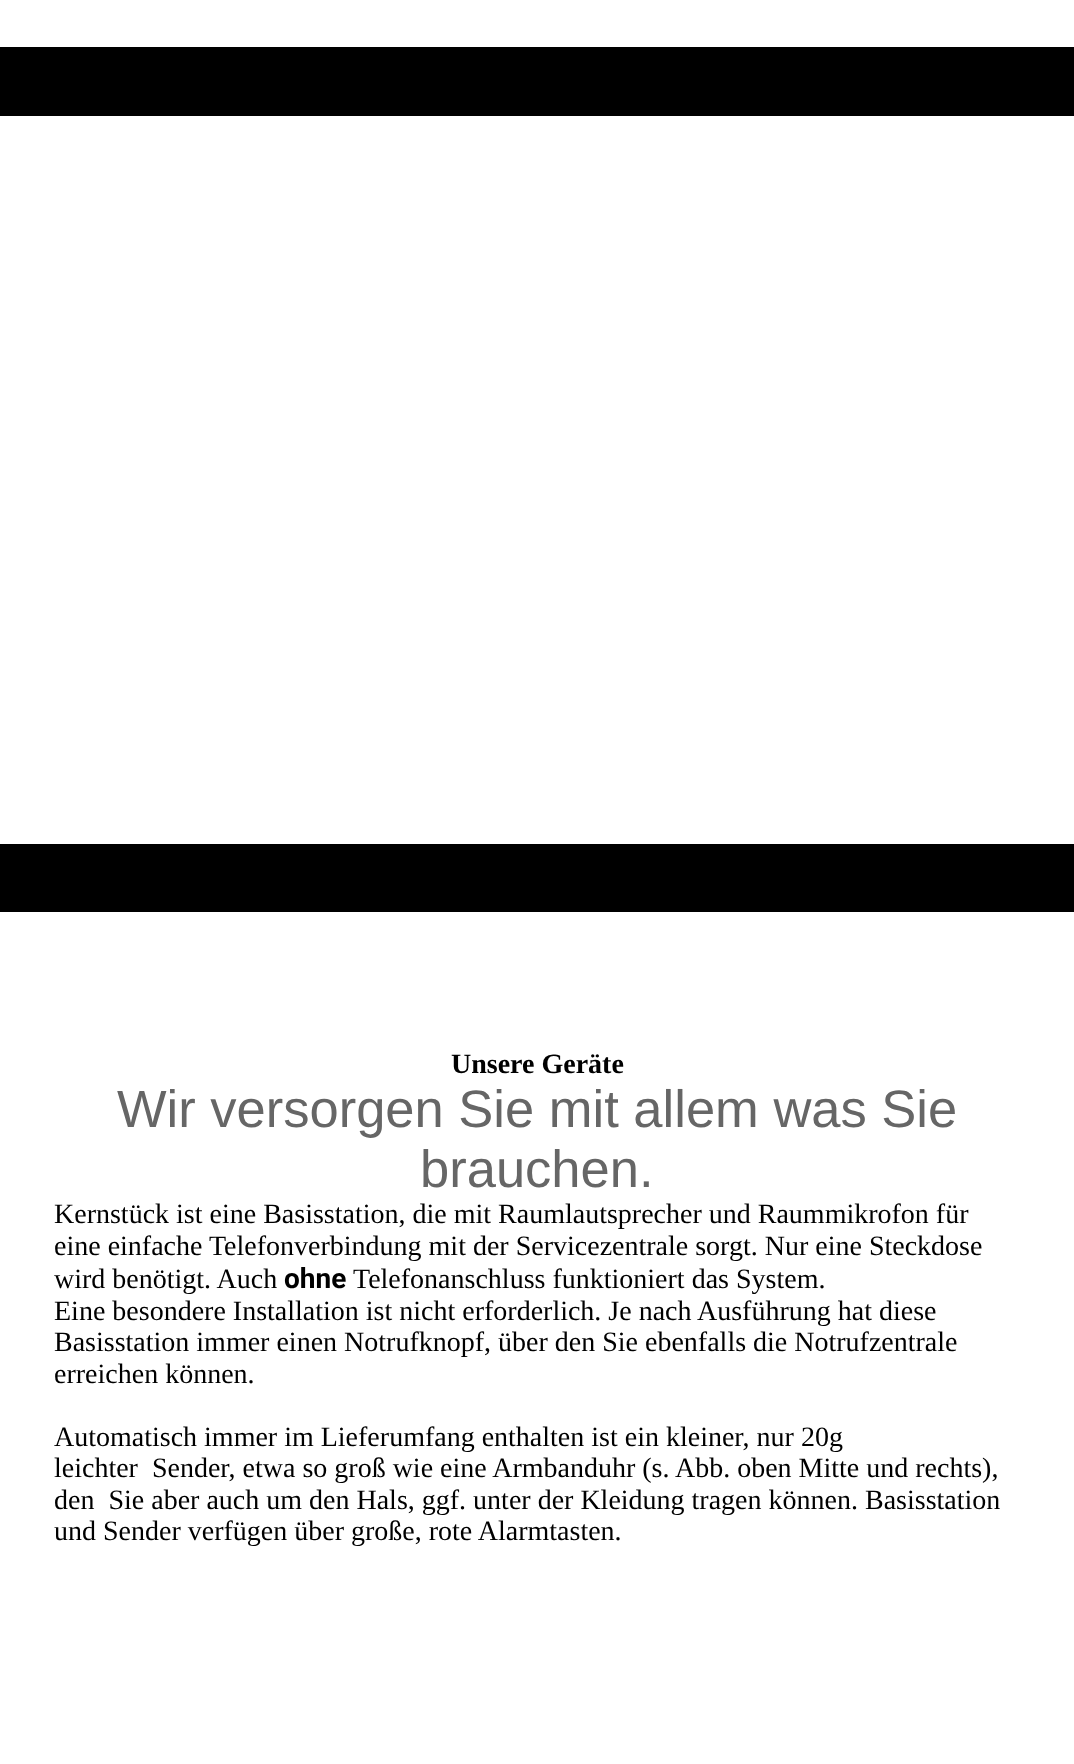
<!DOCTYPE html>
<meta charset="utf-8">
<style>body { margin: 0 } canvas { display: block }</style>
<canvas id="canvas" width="1074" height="1764"></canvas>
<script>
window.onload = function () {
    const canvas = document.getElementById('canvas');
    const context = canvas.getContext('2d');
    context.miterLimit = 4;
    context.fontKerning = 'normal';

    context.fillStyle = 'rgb(255, 255, 255)';
    context.fillRect(0, 0, 1074, 1764);
    context.fillStyle = 'rgb(0, 0, 0)';
    context.fillRect(0, 47, 1074, 69);
    context.fillRect(0, 844, 1074, 68);
    context.font = 'bold 28px Liberation Serif';
    context.fillText('Unsere Geräte', 451, 1073);
    context.font = '52.5px Liberation Sans';
    context.fillStyle = 'rgb(102, 102, 102)';
    context.fillText('Wir versorgen Sie mit allem was Sie', 117, 1127);
    context.fillText('brauchen.', 420, 1187);
    context.font = '28px Liberation Serif';
    context.fillStyle = 'rgb(0, 0, 0)';
    context.fillText('Kernstück ist eine Basisstation, die mit Raumlautsprecher und Raummikrofon für', 54, 1223);
    context.fillText('eine einfache Telefonverbindung mit der Servicezentrale sorgt. Nur eine Steckdose', 54, 1255);
    context.fillText('wird benötigt. Auch', 54, 1288);
    context.font = 'bold 28px Roboto';
    context.fillText('ohne', 284, 1288);
    context.font = '28px Liberation Serif';
    context.fillText('Telefonanschluss funktioniert das System.', 353, 1288);
    context.fillText('Eine besondere Installation ist nicht erforderlich. Je nach Ausführung hat diese', 54, 1320);
    context.fillText('Basisstation immer einen Notrufknopf, über den Sie ebenfalls die Notrufzentrale', 54, 1351);
    context.fillText('erreichen können.', 54, 1383);
    context.fillText('Automatisch immer im Lieferumfang enthalten ist ein kleiner, nur 20g', 54, 1446);
    context.fillText('leichter  Sender, etwa so groß wie eine Armbanduhr (s. Abb. oben Mitte und rechts),', 54, 1477);
    context.fillText('den  Sie aber auch um den Hals, ggf. unter der Kleidung tragen können. Basisstation', 54, 1509);
    context.fillText('und Sender verfügen über große, rote Alarmtasten.', 54, 1540);
};
</script>
